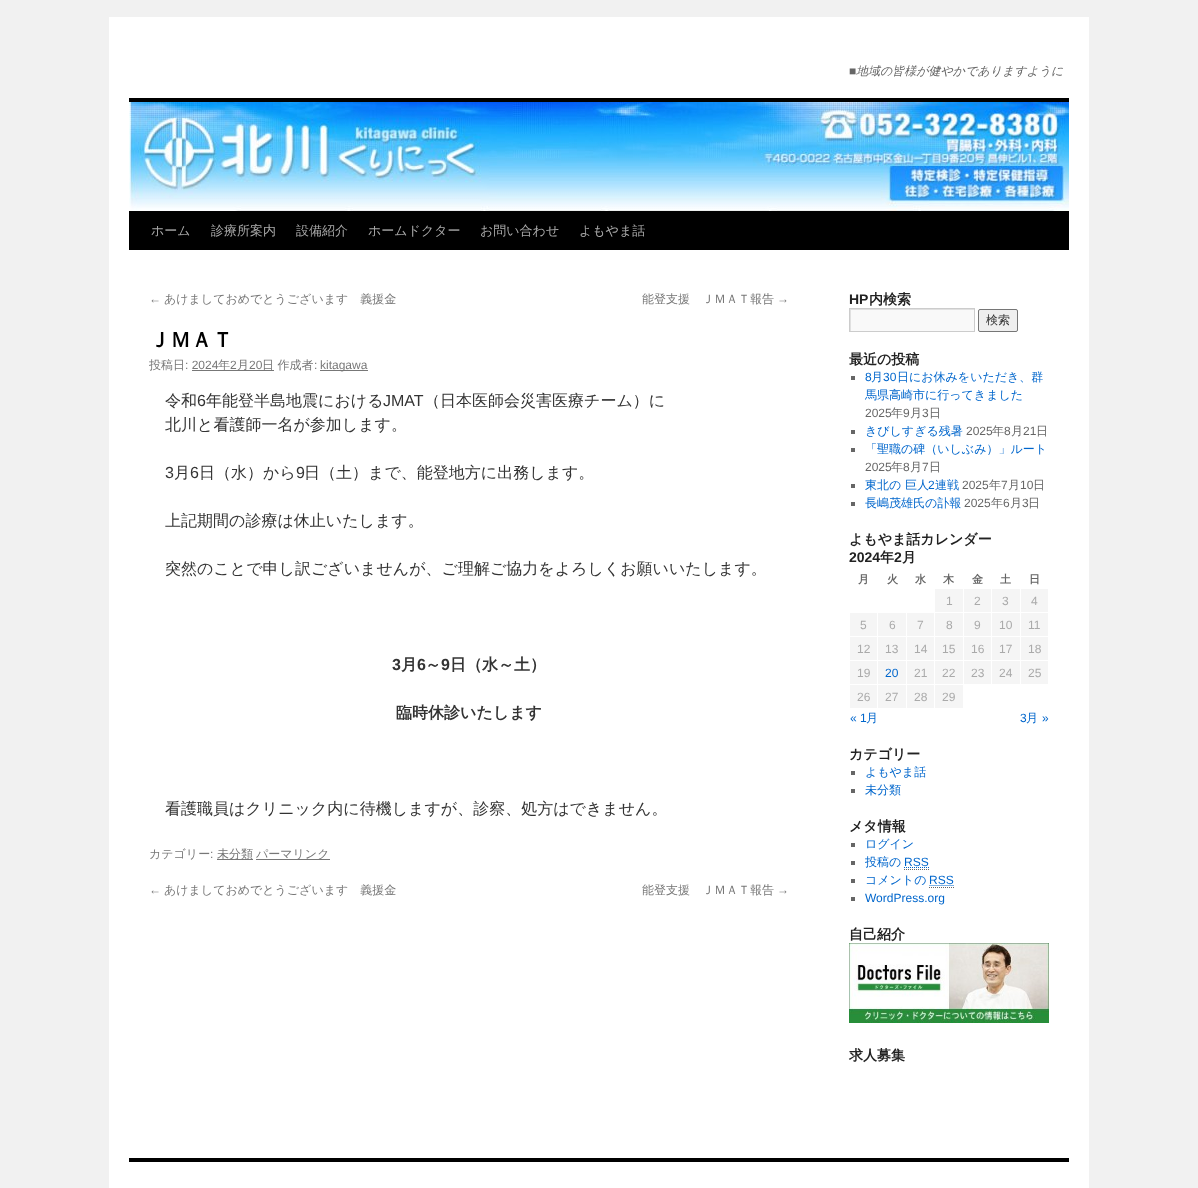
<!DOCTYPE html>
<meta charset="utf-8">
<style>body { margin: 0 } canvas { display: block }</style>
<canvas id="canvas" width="1198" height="1188"></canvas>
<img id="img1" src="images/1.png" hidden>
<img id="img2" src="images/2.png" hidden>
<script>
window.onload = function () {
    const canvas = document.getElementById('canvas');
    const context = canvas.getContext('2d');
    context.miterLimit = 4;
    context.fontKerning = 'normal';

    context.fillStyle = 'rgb(241, 241, 241)';
    context.fillRect(0, 0, 1198, 1188);
    context.fillStyle = 'rgb(255, 255, 255)';
    context.fillRect(109, 17, 980, 1171);
    context.fillStyle = 'rgb(0, 0, 0)';
    context.fillRect(129, 98, 940, 4);
    context.fillRect(129, 211, 940, 39);
    context.drawImage(document.getElementById('img1'), 129, 102, 940, 109);
    context.fillStyle = 'rgb(119, 119, 119)';
    context.fillRect(192, 370, 82, 1);
    context.fillRect(320, 370, 48, 1);
    context.fillRect(217, 859, 36, 1);
    context.fillRect(256, 859, 74, 1);
    context.fillStyle = 'rgb(249, 249, 249)';
    context.fillRect(851, 310, 123, 21);
    context.save();
    context.beginPath();
    context.rect(850, 309, 124, 22);
    context.clip();
    context.fillStyle = 'rgb(224, 224, 224)';
    context.beginPath();
    context.moveTo(751, 210);
    context.lineTo(1073, 210);
    context.lineTo(1073, 430);
    context.lineTo(751, 430);
    context.closePath();
    context.moveTo(851, 310);
    context.lineTo(975, 310);
    context.lineTo(975, 332);
    context.lineTo(851, 332);
    context.closePath();
    context.fill('evenodd');
    context.restore();
    context.strokeStyle = 'rgb(204, 204, 204)';
    context.strokeRect(849.5, 308.5, 125, 23);
    context.fillStyle = 'rgb(239, 239, 239)';
    context.beginPath();
    context.roundRect(978.5, 309.5, 39, 22, 1.5);
    context.fill();
    context.strokeStyle = 'rgb(118, 118, 118)';
    context.stroke();
    context.fillStyle = 'rgb(102, 102, 102)';
    context.fillRect(851, 376, 4, 4);
    context.fillRect(851, 430, 4, 4);
    context.fillRect(851, 448, 4, 4);
    context.fillRect(851, 484, 4, 4);
    context.fillRect(851, 502, 4, 4);
    context.fillStyle = 'rgb(245, 245, 245)';
    context.fillRect(935, 589, 28, 23);
    context.fillRect(964, 589, 27, 23);
    context.fillRect(992, 589, 28, 23);
    context.fillRect(1021, 589, 27, 23);
    context.fillRect(850, 613, 27, 23);
    context.fillRect(878, 613, 28, 23);
    context.fillRect(907, 613, 27, 23);
    context.fillRect(935, 613, 28, 23);
    context.fillRect(964, 613, 27, 23);
    context.fillRect(992, 613, 28, 23);
    context.fillRect(1021, 613, 27, 23);
    context.fillRect(850, 637, 27, 23);
    context.fillRect(878, 637, 28, 23);
    context.fillRect(907, 637, 27, 23);
    context.fillRect(935, 637, 28, 23);
    context.fillRect(964, 637, 27, 23);
    context.fillRect(992, 637, 28, 23);
    context.fillRect(1021, 637, 27, 23);
    context.fillRect(850, 661, 27, 23);
    context.fillRect(878, 661, 28, 23);
    context.fillRect(907, 661, 27, 23);
    context.fillRect(935, 661, 28, 23);
    context.fillRect(964, 661, 27, 23);
    context.fillRect(992, 661, 28, 23);
    context.fillRect(1021, 661, 27, 23);
    context.fillRect(850, 685, 27, 23);
    context.fillRect(878, 685, 28, 23);
    context.fillRect(907, 685, 27, 23);
    context.fillRect(935, 685, 28, 23);
    context.fillStyle = 'rgb(102, 102, 102)';
    context.fillRect(851, 771, 4, 4);
    context.fillRect(851, 789, 4, 4);
    context.fillRect(851, 843, 4, 4);
    context.fillRect(851, 861, 4, 4);
    context.beginPath();
    context.moveTo(904, 869.5);
    context.lineTo(929, 869.5);
    context.strokeStyle = 'rgb(102, 102, 102)';
    context.setLineDash([1, 1]);
    context.stroke();
    context.beginPath();
    context.moveTo(904, 867.5);
    context.lineTo(929, 867.5);
    context.strokeStyle = 'rgb(0, 102, 204)';
    context.stroke();
    context.fillRect(851, 879, 4, 4);
    context.beginPath();
    context.moveTo(929, 887.5);
    context.lineTo(954, 887.5);
    context.strokeStyle = 'rgb(102, 102, 102)';
    context.stroke();
    context.beginPath();
    context.moveTo(929.5, 885.5);
    context.lineTo(954, 885.5);
    context.strokeStyle = 'rgb(0, 102, 204)';
    context.stroke();
    context.fillRect(851, 897, 4, 4);
    context.drawImage(document.getElementById('img2'), 849, 943, 200, 80);
    context.fillStyle = 'rgb(0, 0, 0)';
    context.fillRect(129, 1158, 940, 4);
    context.font = 'italic 12px Liberation Sans';
    context.fillStyle = 'rgb(102, 102, 102)';
    context.fillText('■', 849, 75);
    context.font = 'italic 500 12px WenQuanYi Zen Hei';
    context.fillText('地域の皆様が健やかでありますように', 856, 75);
    context.font = '500 13px WenQuanYi Zen Hei';
    context.fillStyle = 'rgb(170, 170, 170)';
    context.fillText('ホーム', 151, 235);
    context.fillText('診療所案内', 211, 235);
    context.fillText('設備紹介', 296, 235);
    context.fillText('ホームドクター', 368, 235);
    context.fillText('お問い合わせ', 480, 235);
    context.fillText('よもやま話', 579, 235);
    context.font = '12px Liberation Sans';
    context.fillStyle = 'rgb(119, 119, 119)';
    context.fillText('←', 149, 303);
    context.font = '500 12px WenQuanYi Zen Hei';
    context.fillText('あけましておめでとうございます　義援金', 164, 303);
    context.fillText('能登支援　ＪＭＡＴ報告', 642, 303);
    context.font = '12px Liberation Sans';
    context.fillText('→', 777, 303);
    context.font = 'bold 21px WenQuanYi Zen Hei';
    context.fillStyle = 'rgb(0, 0, 0)';
    context.fillText('ＪＭＡＴ', 149, 347);
    context.font = '500 12px WenQuanYi Zen Hei';
    context.fillStyle = 'rgb(119, 119, 119)';
    context.fillText('投稿日', 149, 369);
    context.font = '12px Liberation Sans';
    context.fillText(': 2024', 185, 369);
    context.font = '500 12px WenQuanYi Zen Hei';
    context.fillText('年', 218, 369);
    context.font = '12px Liberation Sans';
    context.fillText('2', 230, 369);
    context.font = '500 12px WenQuanYi Zen Hei';
    context.fillText('月', 237, 369);
    context.font = '12px Liberation Sans';
    context.fillText('20', 249, 369);
    context.font = '500 12px WenQuanYi Zen Hei';
    context.fillText('日 作成者', 262, 369);
    context.font = '12px Liberation Sans';
    context.fillText(':', 314, 369);
    context.fillText('kitagawa', 320, 369);
    context.font = '500 16px WenQuanYi Zen Hei';
    context.fillStyle = 'rgb(51, 51, 51)';
    context.fillText('令和', 165, 406);
    context.font = '16px Liberation Sans';
    context.fillText('6', 197, 406);
    context.font = '500 16px WenQuanYi Zen Hei';
    context.fillText('年能登半島地震における', 206, 406);
    context.font = '16px Liberation Sans';
    context.fillText('JMAT', 383, 406);
    context.font = '500 16px WenQuanYi Zen Hei';
    context.fillText('（日本医師会災害医療チーム）に', 424, 406);
    context.fillText('北川と看護師一名が参加します。', 165, 430);
    context.font = '16px Liberation Sans';
    context.fillText('3', 165, 478);
    context.font = '500 16px WenQuanYi Zen Hei';
    context.fillText('月', 174, 478);
    context.font = '16px Liberation Sans';
    context.fillText('6', 190, 478);
    context.font = '500 16px WenQuanYi Zen Hei';
    context.fillText('日（水）から', 199, 478);
    context.font = '16px Liberation Sans';
    context.fillText('9', 296, 478);
    context.font = '500 16px WenQuanYi Zen Hei';
    context.fillText('日（土）まで、能登地方に出務します。', 304, 478);
    context.fillText('上記期間の診療は休止いたします。', 165, 526);
    context.fillText('突然のことで申し訳ございませんが、ご理解ご協力をよろしくお願いいたします。', 165, 574);
    context.font = 'bold 16px Liberation Sans';
    context.fillText('3', 392, 670);
    context.font = 'bold 16px WenQuanYi Zen Hei';
    context.fillText('月', 401, 670);
    context.font = 'bold 16px Liberation Sans';
    context.fillText('6', 417, 670);
    context.font = 'bold 16px WenQuanYi Zen Hei';
    context.fillText('～', 425, 670);
    context.font = 'bold 16px Liberation Sans';
    context.fillText('9', 441, 670);
    context.font = 'bold 16px WenQuanYi Zen Hei';
    context.fillText('日（水～土）', 450, 670);
    context.fillText('臨時休診いたします', 396, 718);
    context.font = '500 16px WenQuanYi Zen Hei';
    context.fillText('看護職員はクリニック内に待機しますが、診察、処方はできません。', 165, 814);
    context.font = '500 12px WenQuanYi Zen Hei';
    context.fillStyle = 'rgb(119, 119, 119)';
    context.fillText('カテゴリー', 149, 858);
    context.font = '12px Liberation Sans';
    context.fillText(':', 210, 858);
    context.font = '500 12px WenQuanYi Zen Hei';
    context.fillText('未分類', 217, 858);
    context.fillText('パーマリンク', 256, 858);
    context.font = '12px Liberation Sans';
    context.fillText('←', 149, 894);
    context.font = '500 12px WenQuanYi Zen Hei';
    context.fillText('あけましておめでとうございます　義援金', 164, 894);
    context.fillText('能登支援　ＪＭＡＴ報告', 642, 894);
    context.font = '12px Liberation Sans';
    context.fillText('→', 777, 894);
    context.font = 'bold 14px Liberation Sans';
    context.fillStyle = 'rgb(34, 34, 34)';
    context.fillText('HP', 849, 304);
    context.font = 'bold 14px WenQuanYi Zen Hei';
    context.fillText('内検索', 869, 304);
    context.font = '500 12px WenQuanYi Zen Hei';
    context.fillStyle = 'rgb(51, 51, 51)';
    context.fillText('検索', 986, 324);
    context.font = 'bold 14px WenQuanYi Zen Hei';
    context.fillStyle = 'rgb(34, 34, 34)';
    context.fillText('最近の投稿', 849, 364);
    context.font = '12px Liberation Sans';
    context.fillStyle = 'rgb(0, 102, 204)';
    context.fillText('8', 865, 381);
    context.font = '500 12px WenQuanYi Zen Hei';
    context.fillText('月', 871, 381);
    context.font = '12px Liberation Sans';
    context.fillText('30', 883, 381);
    context.font = '500 12px WenQuanYi Zen Hei';
    context.fillText('日にお休みをいただき、群', 897, 381);
    context.fillText('馬県高崎市に行ってきました', 865, 399);
    context.font = '12px Liberation Sans';
    context.fillStyle = 'rgb(102, 102, 102)';
    context.fillText('2025', 865, 417);
    context.font = '500 12px WenQuanYi Zen Hei';
    context.fillText('年', 891, 417);
    context.font = '12px Liberation Sans';
    context.fillText('9', 903, 417);
    context.font = '500 12px WenQuanYi Zen Hei';
    context.fillText('月', 910, 417);
    context.font = '12px Liberation Sans';
    context.fillText('3', 922, 417);
    context.font = '500 12px WenQuanYi Zen Hei';
    context.fillText('日', 929, 417);
    context.fillStyle = 'rgb(0, 102, 204)';
    context.fillText('きびしすぎる残暑', 865, 435);
    context.font = '12px Liberation Sans';
    context.fillStyle = 'rgb(102, 102, 102)';
    context.fillText('2025', 966, 435);
    context.font = '500 12px WenQuanYi Zen Hei';
    context.fillText('年', 992, 435);
    context.font = '12px Liberation Sans';
    context.fillText('8', 1004, 435);
    context.font = '500 12px WenQuanYi Zen Hei';
    context.fillText('月', 1011, 435);
    context.font = '12px Liberation Sans';
    context.fillText('21', 1023, 435);
    context.font = '500 12px WenQuanYi Zen Hei';
    context.fillText('日', 1036, 435);
    context.fillStyle = 'rgb(0, 102, 204)';
    context.fillText('「聖職の碑（いしぶみ）」ルート', 865, 453);
    context.font = '12px Liberation Sans';
    context.fillStyle = 'rgb(102, 102, 102)';
    context.fillText('2025', 865, 471);
    context.font = '500 12px WenQuanYi Zen Hei';
    context.fillText('年', 891, 471);
    context.font = '12px Liberation Sans';
    context.fillText('8', 903, 471);
    context.font = '500 12px WenQuanYi Zen Hei';
    context.fillText('月', 910, 471);
    context.font = '12px Liberation Sans';
    context.fillText('7', 922, 471);
    context.font = '500 12px WenQuanYi Zen Hei';
    context.fillText('日', 929, 471);
    context.fillStyle = 'rgb(0, 102, 204)';
    context.fillText('東北の 巨人', 865, 489);
    context.font = '12px Liberation Sans';
    context.fillText('2', 928, 489);
    context.font = '500 12px WenQuanYi Zen Hei';
    context.fillText('連戦', 935, 489);
    context.font = '12px Liberation Sans';
    context.fillStyle = 'rgb(102, 102, 102)';
    context.fillText('2025', 962, 489);
    context.font = '500 12px WenQuanYi Zen Hei';
    context.fillText('年', 989, 489);
    context.font = '12px Liberation Sans';
    context.fillText('7', 1001, 489);
    context.font = '500 12px WenQuanYi Zen Hei';
    context.fillText('月', 1008, 489);
    context.font = '12px Liberation Sans';
    context.fillText('10', 1020, 489);
    context.font = '500 12px WenQuanYi Zen Hei';
    context.fillText('日', 1033, 489);
    context.fillStyle = 'rgb(0, 102, 204)';
    context.fillText('長嶋茂雄氏の訃報', 865, 507);
    context.font = '12px Liberation Sans';
    context.fillStyle = 'rgb(102, 102, 102)';
    context.fillText('2025', 964, 507);
    context.font = '500 12px WenQuanYi Zen Hei';
    context.fillText('年', 991, 507);
    context.font = '12px Liberation Sans';
    context.fillText('6', 1003, 507);
    context.font = '500 12px WenQuanYi Zen Hei';
    context.fillText('月', 1010, 507);
    context.font = '12px Liberation Sans';
    context.fillText('3', 1022, 507);
    context.font = '500 12px WenQuanYi Zen Hei';
    context.fillText('日', 1028, 507);
    context.font = 'bold 14px WenQuanYi Zen Hei';
    context.fillStyle = 'rgb(34, 34, 34)';
    context.fillText('よもやま話カレンダー', 849, 544);
    context.font = 'bold 14px Liberation Sans';
    context.fillText('2024', 849, 562);
    context.font = 'bold 14px WenQuanYi Zen Hei';
    context.fillText('年', 880, 562);
    context.font = 'bold 14px Liberation Sans';
    context.fillText('2', 894, 562);
    context.font = 'bold 14px WenQuanYi Zen Hei';
    context.fillText('月', 902, 562);
    context.font = 'bold 11px WenQuanYi Zen Hei';
    context.fillStyle = 'rgb(102, 102, 102)';
    context.fillText('月', 858, 583);
    context.fillText('火', 887, 583);
    context.fillText('水', 915, 583);
    context.fillText('木', 943, 583);
    context.fillText('金', 972, 583);
    context.fillText('土', 1000, 583);
    context.fillText('日', 1029, 583);
    context.font = '12px Liberation Sans';
    context.fillStyle = 'rgb(170, 170, 170)';
    context.fillText('1', 946, 605);
    context.fillText('2', 974, 605);
    context.fillText('3', 1002, 605);
    context.fillText('4', 1031, 605);
    context.fillText('5', 860, 629);
    context.fillText('6', 889, 629);
    context.fillText('7', 917, 629);
    context.fillText('8', 946, 629);
    context.fillText('9', 974, 629);
    context.fillText('10', 999, 629);
    context.fillText('11', 1028, 629);
    context.fillText('12', 857, 653);
    context.fillText('13', 885, 653);
    context.fillText('14', 914, 653);
    context.fillText('15', 942, 653);
    context.fillText('16', 971, 653);
    context.fillText('17', 999, 653);
    context.fillText('18', 1028, 653);
    context.fillText('19', 857, 677);
    context.fillStyle = 'rgb(0, 102, 204)';
    context.fillText('20', 885, 677);
    context.fillStyle = 'rgb(170, 170, 170)';
    context.fillText('21', 914, 677);
    context.fillText('22', 942, 677);
    context.fillText('23', 971, 677);
    context.fillText('24', 999, 677);
    context.fillText('25', 1028, 677);
    context.fillText('26', 857, 701);
    context.fillText('27', 885, 701);
    context.fillText('28', 914, 701);
    context.fillText('29', 942, 701);
    context.fillStyle = 'rgb(0, 102, 204)';
    context.fillText('« 1', 850, 722);
    context.font = '500 12px WenQuanYi Zen Hei';
    context.fillText('月', 866, 722);
    context.font = '12px Liberation Sans';
    context.fillText('3', 1020, 722);
    context.font = '500 12px WenQuanYi Zen Hei';
    context.fillText('月', 1026, 722);
    context.font = '12px Liberation Sans';
    context.fillText('»', 1042, 722);
    context.font = 'bold 14px WenQuanYi Zen Hei';
    context.fillStyle = 'rgb(34, 34, 34)';
    context.fillText('カテゴリー', 849, 759);
    context.font = '500 12px WenQuanYi Zen Hei';
    context.fillStyle = 'rgb(0, 102, 204)';
    context.fillText('よもやま話', 865, 776);
    context.fillText('未分類', 865, 794);
    context.font = 'bold 14px WenQuanYi Zen Hei';
    context.fillStyle = 'rgb(34, 34, 34)';
    context.fillText('メタ情報', 849, 831);
    context.font = '500 12px WenQuanYi Zen Hei';
    context.fillStyle = 'rgb(0, 102, 204)';
    context.fillText('ログイン', 865, 848);
    context.fillText('投稿の', 865, 866);
    context.font = '12px Liberation Sans';
    context.fillText('RSS', 904, 866);
    context.font = '500 12px WenQuanYi Zen Hei';
    context.fillText('コメントの', 865, 884);
    context.font = '12px Liberation Sans';
    context.fillText('RSS', 929, 884);
    context.fillText('WordPress.org', 865, 902);
    context.font = 'bold 14px WenQuanYi Zen Hei';
    context.fillStyle = 'rgb(34, 34, 34)';
    context.fillText('自己紹介', 849, 939);
    context.fillText('求人募集', 849, 1060);
};
</script>
